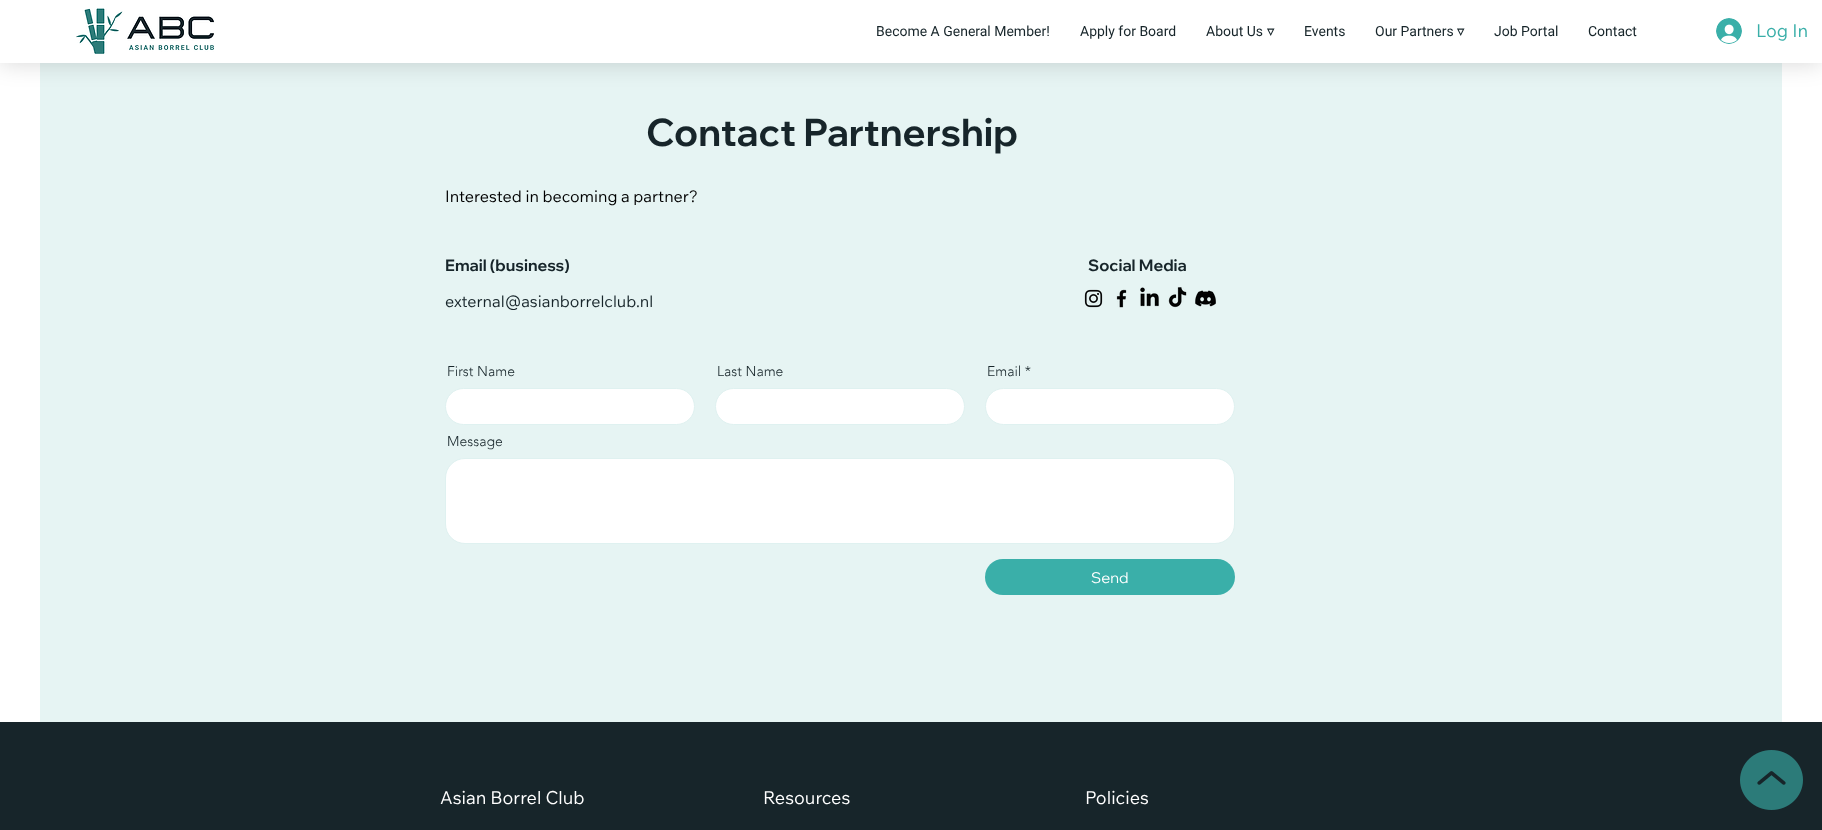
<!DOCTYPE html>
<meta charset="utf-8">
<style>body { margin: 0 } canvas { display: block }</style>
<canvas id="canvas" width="1822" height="830"></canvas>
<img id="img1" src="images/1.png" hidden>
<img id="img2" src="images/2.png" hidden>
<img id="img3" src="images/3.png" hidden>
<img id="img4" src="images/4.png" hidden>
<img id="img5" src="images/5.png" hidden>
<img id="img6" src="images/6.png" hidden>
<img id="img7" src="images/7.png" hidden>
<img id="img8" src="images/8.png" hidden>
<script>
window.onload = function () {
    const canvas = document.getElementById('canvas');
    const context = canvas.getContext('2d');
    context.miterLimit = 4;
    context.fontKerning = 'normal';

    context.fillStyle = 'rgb(255, 255, 255)';
    context.fillRect(0, 0, 1822, 830);
    context.fillStyle = 'rgb(230, 244, 243)';
    context.fillRect(40, 63, 1742, 659);
    context.fillStyle = 'rgba(0, 0, 0, 0.16)';
    context.filter = 'blur(11.5px)';
    context.beginPath();
    context.rect(0, 1, 1822, 62);
    context.fill();
    context.filter = 'none';
    context.fillStyle = 'rgb(255, 255, 255)';
    context.fillRect(0, 0, 1822, 63);
    context.drawImage(document.getElementById('img1'), 76, 8, 138, 46);
    context.drawImage(document.getElementById('img2'), 1716, 18, 26, 26);
    context.drawImage(document.getElementById('img3'), 1084, 289, 19, 19);
    context.drawImage(document.getElementById('img4'), 1116, 289, 11, 19);
    context.drawImage(document.getElementById('img5'), 1140, 287, 19, 20);
    context.drawImage(document.getElementById('img6'), 1168, 287, 19, 21);
    context.drawImage(document.getElementById('img7'), 1195, 290, 21, 17);
    context.beginPath();
    context.roundRect(445.5, 388.5, 249, 36, 18);
    context.fill();
    context.strokeStyle = 'rgb(223, 241, 240)';
    context.stroke();
    context.beginPath();
    context.roundRect(715.5, 388.5, 249, 36, 18);
    context.fill();
    context.stroke();
    context.beginPath();
    context.roundRect(985.5, 388.5, 249, 36, 18);
    context.fill();
    context.stroke();
    context.beginPath();
    context.roundRect(445.5, 458.5, 789, 85, 19.5);
    context.fill();
    context.stroke();
    context.fillStyle = 'rgb(58, 175, 169)';
    context.beginPath();
    context.roundRect(985, 559, 250, 36, 18);
    context.fill();
    context.fillStyle = 'rgb(23, 37, 42)';
    context.fillRect(0, 722, 1822, 108);
    context.drawImage(document.getElementById('img8'), 1740, 750, 63, 60);
    context.font = '14px Roboto';
    context.fillText('Become A General Member!', 876, 36);
    context.fillText('Apply for Board', 1080, 36);
    context.fillText('About Us', 1206, 36);
    context.font = 'bold 14px DejaVu Sans';
    context.fillText('▿', 1267, 36);
    context.font = '14px Roboto';
    context.fillText('Events', 1304, 36);
    context.fillText('Our Partners', 1375, 36);
    context.font = 'bold 14px DejaVu Sans';
    context.fillText('▿', 1457, 36);
    context.font = '14px Roboto';
    context.fillText('Job Portal', 1494, 36);
    context.fillText('Contact', 1588, 36);
    context.font = '18px Wix Madefor Text';
    context.fillStyle = 'rgb(58, 175, 169)';
    context.fillText('Log In', 1756, 37);
    context.font = 'bold 38px Wix Madefor Display';
    context.fillStyle = 'rgb(23, 37, 42)';
    context.fillText('Contact Partnership', 646, 146);
    context.font = '16px Wix Madefor Text';
    context.fillStyle = 'rgb(0, 0, 0)';
    context.fillText('Interested in becoming a partner?', 445, 202);
    context.font = 'bold 16px Wix Madefor Display';
    context.fillStyle = 'rgb(23, 37, 42)';
    context.fillText('Email (business)', 445, 271);
    context.fillText('Social Media', 1088, 271);
    context.font = '16px Wix Madefor Text';
    context.fillText('external@asianborrelclub.nl', 445, 307);
    context.font = '300 14px "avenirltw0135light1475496"';
    context.fillText('First Name', 447, 376);
    context.fillText('Last Name', 717, 376);
    context.fillText('Email *', 987, 376);
    context.fillText('Message', 447, 446);
    context.font = '15px Wix Madefor Display';
    context.fillStyle = 'rgb(255, 255, 255)';
    context.fillText('Send', 1091, 583);
    context.font = '18px Wix Madefor Text';
    context.fillText('Asian Borrel Club', 440, 804);
    context.fillText('Resources', 763, 804);
    context.fillText('Policies', 1085, 804);
};
</script>
